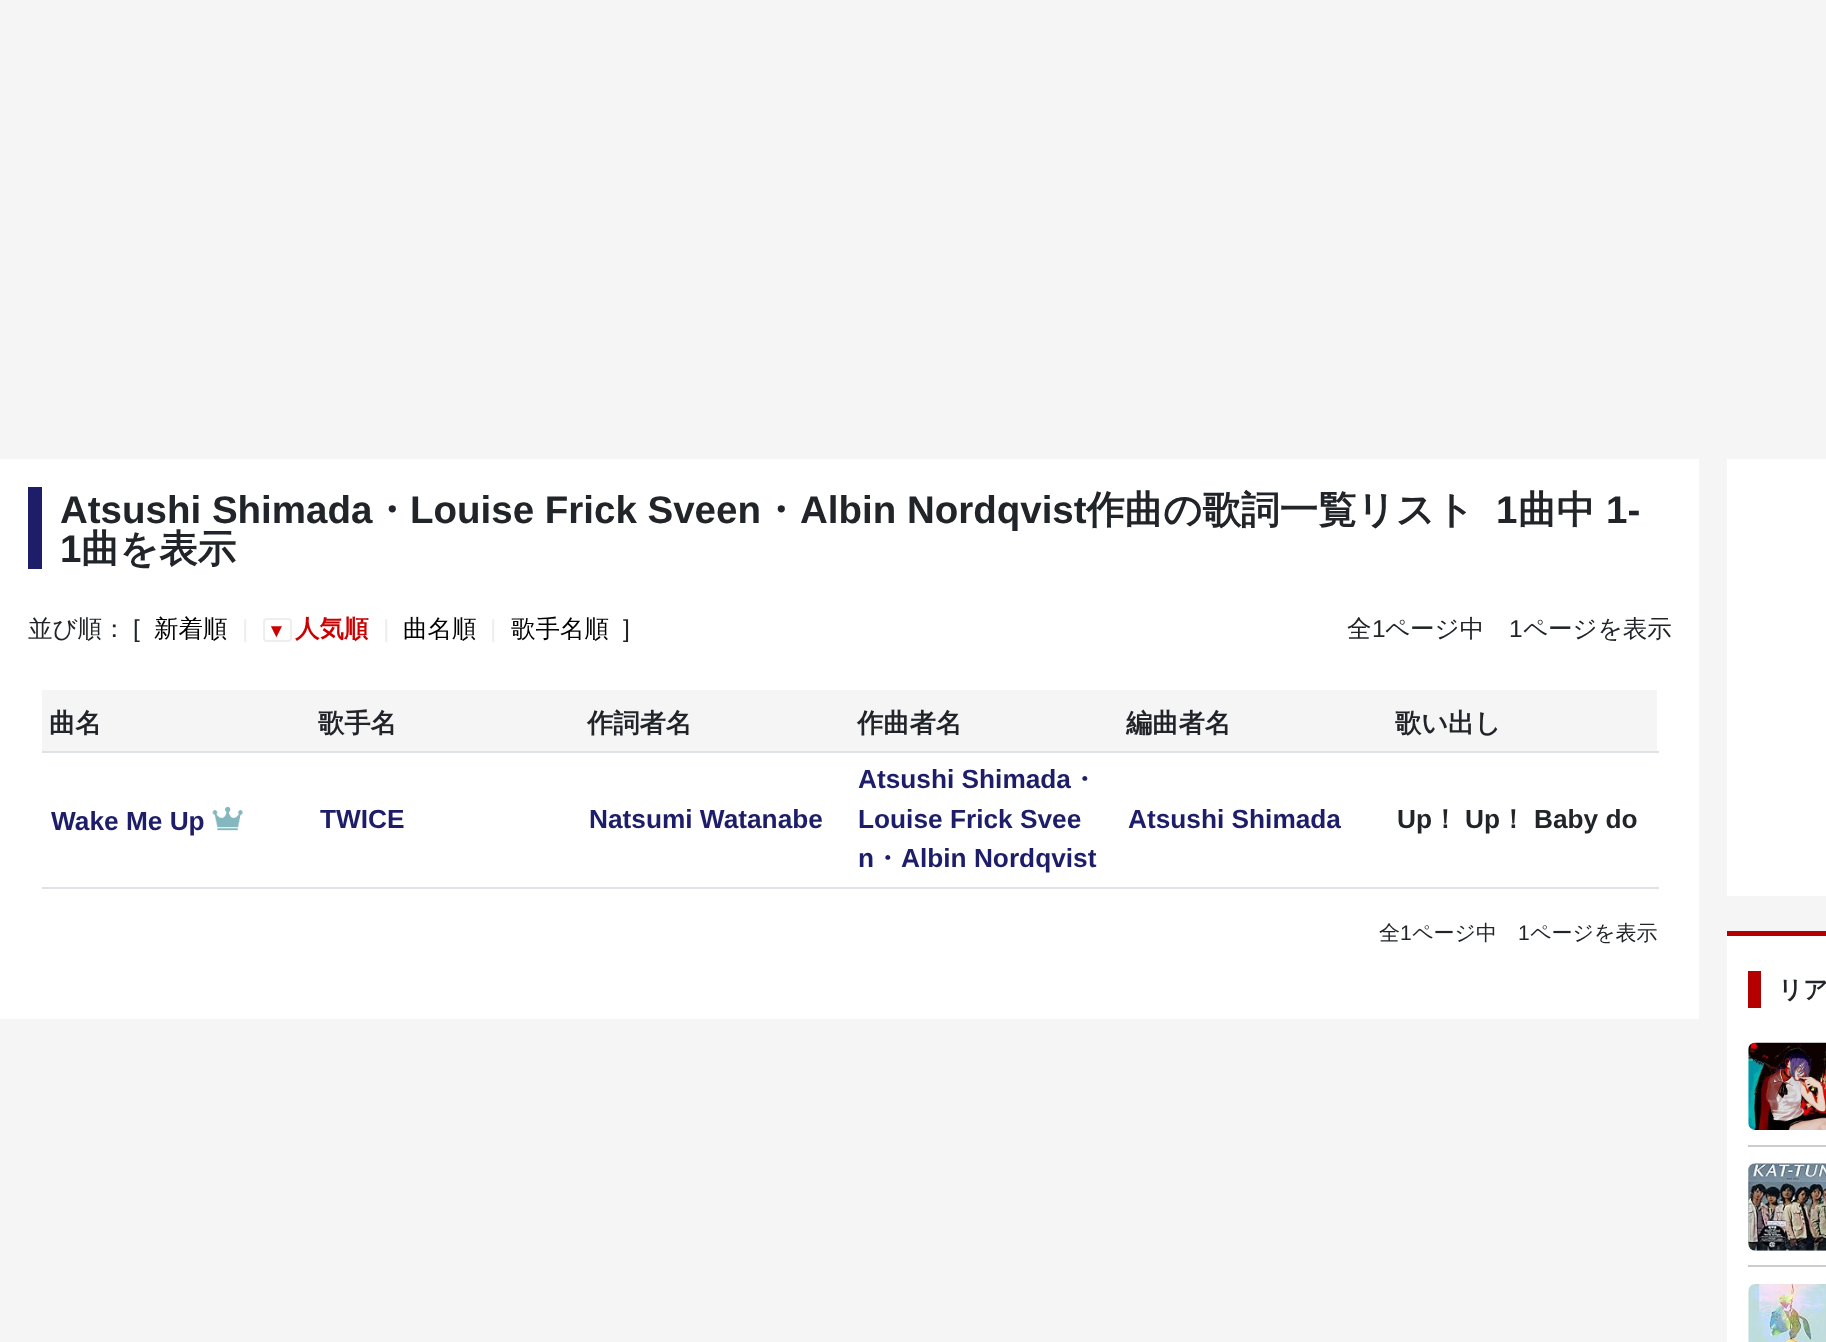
<!DOCTYPE html>
<meta charset="utf-8">
<style>body { margin: 0 } canvas { display: block }</style>
<canvas id="canvas" width="1826" height="1342"></canvas>
<img id="img1" src="images/1.png" hidden>
<img id="img2" src="images/2.png" hidden>
<img id="img3" src="images/3.png" hidden>
<img id="img4" src="images/4.png" hidden>
<script>
window.onload = function () {
    const canvas = document.getElementById('canvas');
    const context = canvas.getContext('2d');
    context.miterLimit = 4;
    context.fontKerning = 'normal';

    context.fillStyle = 'rgb(245, 245, 245)';
    context.fillRect(0, 0, 1826, 1342);
    context.fillStyle = 'rgb(255, 255, 255)';
    context.fillRect(0, 459, 1699, 560);
    context.fillStyle = 'rgb(29, 29, 106)';
    context.fillRect(28, 487, 14, 82);
    context.beginPath();
    context.roundRect(264, 619, 27, 22, 3);
    context.strokeStyle = 'rgb(238, 238, 238)';
    context.lineWidth = 2;
    context.stroke();
    context.fillStyle = 'rgb(222, 226, 230)';
    context.fillRect(42, 751, 1617, 2);
    context.fillStyle = 'rgb(245, 245, 245)';
    context.fillRect(42, 690, 1615, 61);
    context.fillStyle = 'rgb(222, 226, 230)';
    context.fillRect(42, 887, 1617, 2);
    context.drawImage(document.getElementById('img1'), 212, 806, 31, 25);
    context.fillStyle = 'rgb(255, 255, 255)';
    context.fillRect(1727, 459, 99, 437);
    context.fillRect(1727, 936, 99, 406);
    context.fillStyle = 'rgb(180, 0, 0)';
    context.fillRect(1727, 931, 99, 5);
    context.fillRect(1748, 971, 13, 37);
    context.fillStyle = 'rgb(204, 204, 204)';
    context.fillRect(1748, 1145, 78, 2);
    context.drawImage(document.getElementById('img2'), 1748, 1042, 78, 88);
    context.fillRect(1748, 1265, 78, 2);
    context.drawImage(document.getElementById('img3'), 1748, 1163, 78, 88);
    context.drawImage(document.getElementById('img4'), 1748, 1284, 78, 58);
    context.font = 'bold 38.5px Liberation Sans';
    context.fillStyle = 'rgb(33, 37, 41)';
    context.fillText('Atsushi Shimada', 60, 523);
    context.font = 'bold 38.5px WenQuanYi Zen Hei';
    context.fillText('・', 372, 523);
    context.font = 'bold 38.5px Liberation Sans';
    context.fillText('Louise Frick Sveen', 410, 523);
    context.font = 'bold 38.5px WenQuanYi Zen Hei';
    context.fillText('・', 761, 523);
    context.font = 'bold 38.5px Liberation Sans';
    context.fillText('Albin Nordqvist', 800, 523);
    context.font = 'bold 38.5px WenQuanYi Zen Hei';
    context.fillText('作曲の歌詞一覧リスト', 1086, 523);
    context.font = 'bold 38.5px Liberation Sans';
    context.fillText('1', 1496, 523);
    context.font = 'bold 38.5px WenQuanYi Zen Hei';
    context.fillText('曲中', 1518, 523);
    context.font = 'bold 38.5px Liberation Sans';
    context.fillText('1-', 1606, 523);
    context.fillText('1', 60, 562);
    context.font = 'bold 38.5px WenQuanYi Zen Hei';
    context.fillText('曲を表示', 81, 562);
    context.font = '500 24.5px WenQuanYi Zen Hei';
    context.fillText('並び順：', 28, 637);
    context.font = '24.5px Liberation Sans';
    context.fillText('[', 133, 637);
    context.font = '500 24.5px WenQuanYi Zen Hei';
    context.fillStyle = 'rgb(0, 0, 0)';
    context.fillText('新着順', 154, 637);
    context.font = '24.5px Liberation Sans';
    context.fillStyle = 'rgb(238, 238, 238)';
    context.fillText('|', 242, 637);
    context.font = 'bold 19px Liberation Sans';
    context.fillStyle = 'rgb(204, 0, 0)';
    context.fillText('▼', 267, 637);
    context.font = 'bold 24.5px WenQuanYi Zen Hei';
    context.fillText('人気順', 295, 637);
    context.font = '24.5px Liberation Sans';
    context.fillStyle = 'rgb(238, 238, 238)';
    context.fillText('|', 383, 637);
    context.font = '500 24.5px WenQuanYi Zen Hei';
    context.fillStyle = 'rgb(0, 0, 0)';
    context.fillText('曲名順', 403, 637);
    context.font = '24.5px Liberation Sans';
    context.fillStyle = 'rgb(238, 238, 238)';
    context.fillText('|', 490, 637);
    context.font = '500 24.5px WenQuanYi Zen Hei';
    context.fillStyle = 'rgb(0, 0, 0)';
    context.fillText('歌手名順', 511, 637);
    context.font = '24.5px Liberation Sans';
    context.fillStyle = 'rgb(33, 37, 41)';
    context.fillText(']', 623, 637);
    context.font = '500 24.5px WenQuanYi Zen Hei';
    context.fillText('全', 1347, 637);
    context.font = '24.5px Liberation Sans';
    context.fillText('1', 1372, 637);
    context.font = '500 24.5px WenQuanYi Zen Hei';
    context.fillText('ページ中', 1385, 637);
    context.font = '24.5px Liberation Sans';
    context.fillText('1', 1509, 637);
    context.font = '500 24.5px WenQuanYi Zen Hei';
    context.fillText('ページを表示', 1523, 637);
    context.font = 'bold 26.25px WenQuanYi Zen Hei';
    context.fillText('曲名', 49, 732);
    context.fillText('歌手名', 318, 732);
    context.fillText('作詞者名', 587, 732);
    context.fillText('作曲者名', 857, 732);
    context.fillText('編曲者名', 1126, 732);
    context.fillText('歌い出し', 1395, 732);
    context.font = 'bold 26.25px Liberation Sans';
    context.fillStyle = 'rgb(29, 29, 106)';
    context.fillText('Wake Me Up', 51, 830);
    context.fillText('TWICE', 320, 828);
    context.fillText('Natsumi Watanabe', 589, 828);
    context.fillText('Atsushi Shimada', 858, 788);
    context.font = 'bold 26.25px WenQuanYi Zen Hei';
    context.fillText('・', 1071, 788);
    context.font = 'bold 26.25px Liberation Sans';
    context.fillText('Louise Frick Svee', 858, 828);
    context.fillText('n', 858, 867);
    context.font = 'bold 26.25px WenQuanYi Zen Hei';
    context.fillText('・', 874, 867);
    context.font = 'bold 26.25px Liberation Sans';
    context.fillText('Albin Nordqvist', 901, 867);
    context.fillText('Atsushi Shimada', 1128, 828);
    context.fillStyle = 'rgb(33, 37, 41)';
    context.fillText('Up', 1397, 828);
    context.font = 'bold 26.25px WenQuanYi Zen Hei';
    context.fillText('！', 1432, 828);
    context.font = 'bold 26.25px Liberation Sans';
    context.fillText('Up', 1465, 828);
    context.font = 'bold 26.25px WenQuanYi Zen Hei';
    context.fillText('！', 1500, 828);
    context.font = 'bold 26.25px Liberation Sans';
    context.fillText('Baby do', 1534, 828);
    context.font = '500 21px WenQuanYi Zen Hei';
    context.fillText('全', 1379, 940);
    context.font = '21px Liberation Sans';
    context.fillText('1', 1400, 940);
    context.font = '500 21px WenQuanYi Zen Hei';
    context.fillText('ページ中', 1412, 940);
    context.font = '21px Liberation Sans';
    context.fillText('1', 1518, 940);
    context.font = '500 21px WenQuanYi Zen Hei';
    context.fillText('ページを表示', 1530, 940);
    context.font = 'bold 24.5px WenQuanYi Zen Hei';
    context.fillText('リア', 1778, 998);
};
</script>
